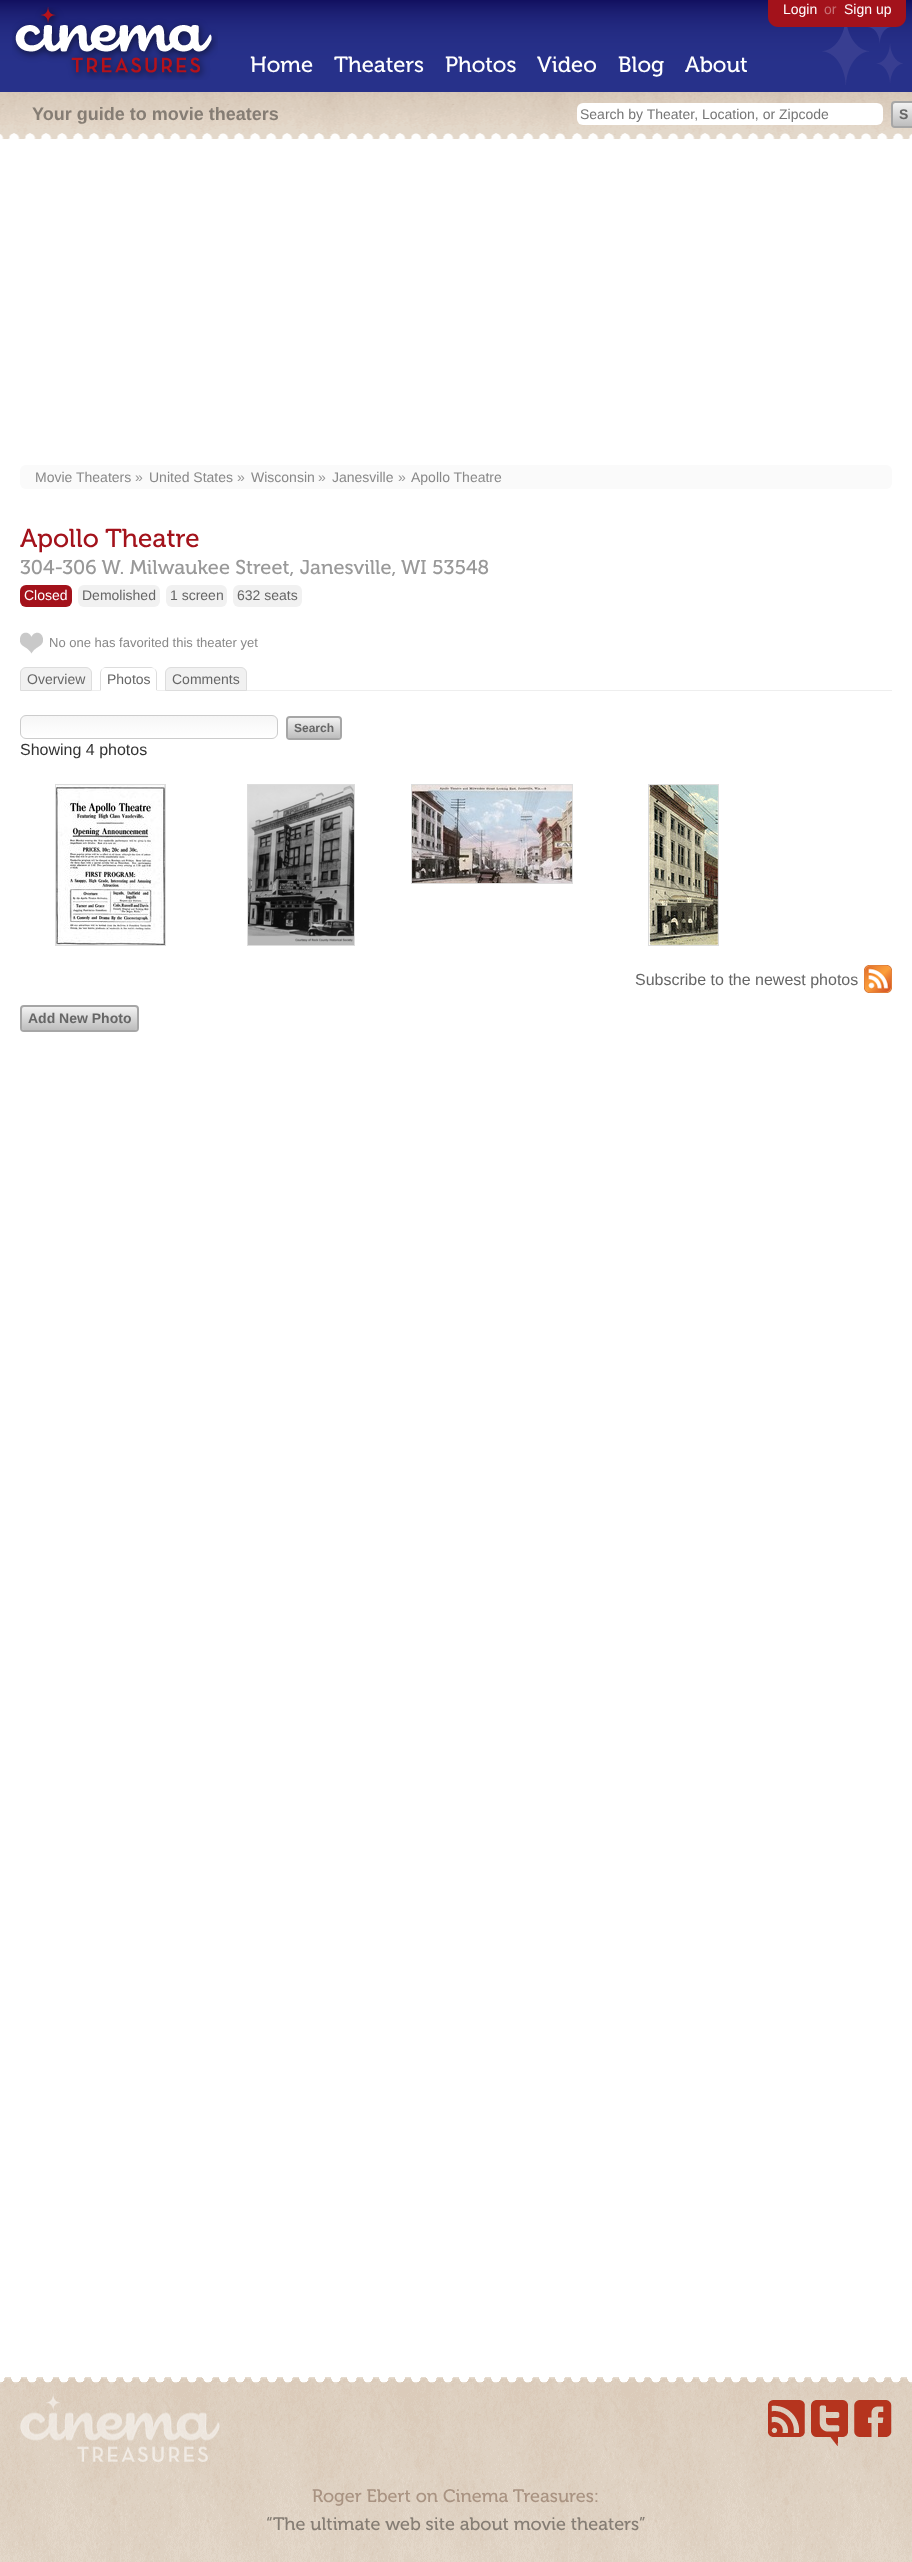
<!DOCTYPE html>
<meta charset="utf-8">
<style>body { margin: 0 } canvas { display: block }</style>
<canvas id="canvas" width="912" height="2562"></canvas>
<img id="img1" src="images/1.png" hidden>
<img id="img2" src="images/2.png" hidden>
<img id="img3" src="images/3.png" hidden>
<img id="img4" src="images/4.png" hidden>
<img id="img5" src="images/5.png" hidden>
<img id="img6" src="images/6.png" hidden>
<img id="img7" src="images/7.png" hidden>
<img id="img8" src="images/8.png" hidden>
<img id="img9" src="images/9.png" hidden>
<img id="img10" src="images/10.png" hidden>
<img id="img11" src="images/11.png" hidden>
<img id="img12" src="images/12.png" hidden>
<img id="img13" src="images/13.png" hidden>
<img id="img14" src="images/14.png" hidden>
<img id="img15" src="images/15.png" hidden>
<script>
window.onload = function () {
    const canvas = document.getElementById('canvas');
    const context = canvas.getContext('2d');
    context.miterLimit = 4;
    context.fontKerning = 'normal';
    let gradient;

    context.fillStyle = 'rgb(255, 255, 255)';
    context.fillRect(0, 0, 912, 2562);
    context.drawImage(document.getElementById('img1'), 0, 0, 912, 92);
    context.drawImage(document.getElementById('img2'), 12, 7, 206, 73);
    context.fillStyle = 'rgb(163, 18, 27)';
    context.beginPath();
    context.moveTo(768, -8);
    context.lineTo(906, -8);
    context.lineTo(906, 17);
    context.bezierCurveTo(906, 22.5, 901.5, 27, 896, 27);
    context.lineTo(778, 27);
    context.bezierCurveTo(772.5, 27, 768, 22.5, 768, 17);
    context.closePath();
    context.fill();
    context.drawImage(document.getElementById('img3'), 822, 27, 81, 58);
    context.drawImage(document.getElementById('img4'), 0, 92, 912, 48);
    context.fillStyle = 'rgb(255, 255, 255)';
    context.beginPath();
    context.roundRect(577, 103, 306, 22, 6);
    context.fill();
    gradient = context.createLinearGradient(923, 103, 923, 126);
    gradient.addColorStop(0, 'rgb(242, 242, 242)');
    gradient.addColorStop(1, 'rgb(189, 189, 189)');
    context.fillStyle = gradient;
    context.beginPath();
    context.roundRect(893, 103, 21, 23, 2);
    context.fill();
    context.beginPath();
    context.roundRect(892, 102, 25, 25, 3);
    context.strokeStyle = 'rgb(166, 166, 166)';
    context.lineWidth = 2;
    context.stroke();
    context.fillStyle = 'rgb(250, 250, 250)';
    context.beginPath();
    context.roundRect(20, 465, 872, 24, 6);
    context.fill();
    context.fillStyle = 'rgb(163, 18, 27)';
    context.beginPath();
    context.roundRect(20, 585, 52, 22, 6);
    context.fill();
    context.fillStyle = 'rgb(241, 241, 241)';
    context.beginPath();
    context.roundRect(78, 585, 82, 22, 6);
    context.fill();
    context.beginPath();
    context.roundRect(166, 585, 61, 22, 6);
    context.fill();
    context.beginPath();
    context.roundRect(233, 585, 69, 22, 6);
    context.fill();
    context.drawImage(document.getElementById('img5'), 20, 632, 23, 22);
    context.fillStyle = 'rgb(238, 238, 238)';
    context.fillRect(92, 690, 800, 1);
    context.fillStyle = 'rgb(241, 241, 241)';
    context.beginPath();
    context.roundRect(20.5, 667.5, 71, 23, [5.5, 5.5, 0, 0]);
    context.fill();
    context.strokeStyle = 'rgb(221, 221, 221)';
    context.lineWidth = 1;
    context.stroke();
    context.fillStyle = 'rgb(255, 255, 255)';
    context.beginPath();
    context.roundRect(100, 667, 57, 24, [6, 6, 0, 0]);
    context.fill();
    context.fillStyle = 'rgb(221, 221, 221)';
    context.beginPath();
    context.moveTo(106, 667);
    context.bezierCurveTo(104, 667, 103, 668, 102, 669);
    context.bezierCurveTo(103, 668, 104, 668, 106, 668);
    context.lineTo(151, 668);
    context.bezierCurveTo(152, 668, 154, 668, 155, 669);
    context.bezierCurveTo(154, 668, 152, 667, 151, 667);
    context.closePath();
    context.moveTo(157, 691);
    context.lineTo(157, 673);
    context.bezierCurveTo(157, 671.5, 156, 670, 155, 669);
    context.lineTo(154.5, 669.5);
    context.bezierCurveTo(155.5, 670, 156, 671.5, 156, 673);
    context.lineTo(156, 690);
    context.closePath();
    context.fill();
    context.fillStyle = 'rgb(255, 255, 255)';
    context.beginPath();
    context.moveTo(157, 691);
    context.lineTo(156, 690);
    context.lineTo(101, 690);
    context.lineTo(100, 691);
    context.closePath();
    context.fill();
    context.fillStyle = 'rgb(221, 221, 221)';
    context.beginPath();
    context.moveTo(100, 691);
    context.lineTo(101, 690);
    context.lineTo(101, 673);
    context.bezierCurveTo(101, 671.5, 101.5, 670, 102.5, 669.5);
    context.lineTo(102, 669);
    context.bezierCurveTo(101, 670, 100, 671.5, 100, 673);
    context.closePath();
    context.fill();
    context.fillStyle = 'rgb(241, 241, 241)';
    context.beginPath();
    context.roundRect(165.5, 667.5, 81, 23, [5.5, 5.5, 0, 0]);
    context.fill();
    context.stroke();
    context.save();
    context.beginPath();
    context.roundRect(20, 715, 258, 24, 6);
    context.clip();
    gradient = context.createLinearGradient(149, 716, 149, 738);
    gradient.addColorStop(0, 'rgb(246, 246, 246)');
    gradient.addColorStop(1, 'rgb(255, 255, 255)');
    context.fillStyle = gradient;
    context.fillRect(20, 716, 258, 22);
    context.restore();
    context.beginPath();
    context.roundRect(20.5, 715.5, 257, 23, 5.5);
    context.strokeStyle = 'rgb(204, 204, 204)';
    context.stroke();
    gradient = context.createLinearGradient(314, 718, 314, 738);
    gradient.addColorStop(0, 'rgb(242, 242, 242)');
    gradient.addColorStop(1, 'rgb(189, 189, 189)');
    context.fillStyle = gradient;
    context.beginPath();
    context.roundRect(288, 718, 52, 20, 2);
    context.fill();
    context.beginPath();
    context.roundRect(287, 717, 54, 22, 3);
    context.strokeStyle = 'rgb(166, 166, 166)';
    context.lineWidth = 2;
    context.stroke();
    context.strokeStyle = 'rgb(221, 221, 221)';
    context.lineWidth = 1;
    context.strokeRect(55.5, 784.5, 110, 161);
    context.drawImage(document.getElementById('img6'), 56, 785, 109, 160);
    context.strokeRect(247.5, 784.5, 107, 161);
    context.drawImage(document.getElementById('img7'), 248, 785, 106, 160);
    context.strokeRect(411.5, 784.5, 161, 99);
    context.drawImage(document.getElementById('img8'), 412, 785, 160, 98);
    context.strokeRect(648.5, 784.5, 70, 161);
    context.drawImage(document.getElementById('img9'), 649, 785, 69, 160);
    context.drawImage(document.getElementById('img10'), 864, 965, 28, 28);
    gradient = context.createLinearGradient(80, 1007, 80, 1030);
    gradient.addColorStop(0, 'rgb(242, 242, 242)');
    gradient.addColorStop(1, 'rgb(189, 189, 189)');
    context.fillStyle = gradient;
    context.beginPath();
    context.roundRect(22, 1007, 115, 23, 2);
    context.fill();
    context.beginPath();
    context.roundRect(21, 1006, 117, 25, 3);
    context.strokeStyle = 'rgb(166, 166, 166)';
    context.lineWidth = 2;
    context.stroke();
    context.drawImage(document.getElementById('img11'), 0, 2377, 912, 185);
    context.drawImage(document.getElementById('img12'), 20, 2394, 200, 68);
    context.drawImage(document.getElementById('img13'), 768, 2400, 37, 37);
    context.drawImage(document.getElementById('img14'), 811, 2400, 37, 46);
    context.drawImage(document.getElementById('img15'), 854, 2400, 38, 37);
    context.font = '22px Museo';
    context.fillStyle = 'rgb(255, 255, 255)';
    context.fillText('Home', 250, 72);
    context.fillText('Theaters', 334, 72);
    context.fillText('Photos', 445, 72);
    context.fillText('Video', 537, 72);
    context.fillText('Blog', 618, 72);
    context.fillText('About', 685, 72);
    context.font = '14px Liberation Sans';
    context.fillText('Login', 783, 14);
    context.fillStyle = 'rgb(200, 113, 118)';
    context.fillText('or', 824, 14);
    context.fillStyle = 'rgb(255, 255, 255)';
    context.fillText('Sign up', 844, 14);
    context.font = 'bold 18px Liberation Sans';
    context.fillStyle = 'rgb(133, 125, 116)';
    context.fillText('Your guide to movie theaters', 32, 120);
    context.font = '14px Liberation Sans';
    context.fillStyle = 'rgb(117, 117, 117)';
    context.fillText('Search by Theater, Location, or Zipcode', 580, 119);
    context.font = 'bold 14px Liberation Sans';
    context.fillStyle = 'rgb(102, 102, 102)';
    context.fillText('S', 899, 119);
    context.font = '14px Liberation Sans';
    context.fillStyle = 'rgb(136, 136, 136)';
    context.fillText('Movie Theaters', 35, 482);
    context.fillStyle = 'rgb(153, 153, 153)';
    context.fillText('»', 135, 482);
    context.fillStyle = 'rgb(136, 136, 136)';
    context.fillText('United States', 149, 482);
    context.fillStyle = 'rgb(153, 153, 153)';
    context.fillText('»', 237, 482);
    context.fillStyle = 'rgb(136, 136, 136)';
    context.fillText('Wisconsin', 251, 482);
    context.fillStyle = 'rgb(153, 153, 153)';
    context.fillText('»', 318, 482);
    context.fillStyle = 'rgb(136, 136, 136)';
    context.fillText('Janesville', 332, 482);
    context.fillStyle = 'rgb(153, 153, 153)';
    context.fillText('»', 398, 482);
    context.fillStyle = 'rgb(136, 136, 136)';
    context.fillText('Apollo Theatre', 411, 482);
    context.font = '26px Museo';
    context.fillStyle = 'rgb(163, 18, 27)';
    context.fillText('Apollo Theatre', 20, 547);
    context.font = '20px Museo';
    context.fillStyle = 'rgb(153, 153, 153)';
    context.fillText('304-306 W. Milwaukee Street, Janesville,', 20, 574);
    context.fillText('WI 53548', 401, 574);
    context.font = '14px Liberation Sans';
    context.fillStyle = 'rgb(255, 255, 255)';
    context.fillText('Closed', 24, 600);
    context.fillStyle = 'rgb(102, 102, 102)';
    context.fillText('Demolished', 82, 600);
    context.fillText('1 screen', 170, 600);
    context.fillText('632 seats', 237, 600);
    context.font = '13px Liberation Sans';
    context.fillStyle = 'rgb(136, 136, 136)';
    context.fillText('No one has favorited this theater yet', 49, 647);
    context.font = '14px Liberation Sans';
    context.fillStyle = 'rgb(102, 102, 102)';
    context.fillText('Overview', 27, 684);
    context.fillText('Photos', 107, 684);
    context.fillText('Comments', 172, 684);
    context.font = 'bold 12px Liberation Sans';
    context.fillText('Search', 294, 732);
    context.font = '16px Liberation Sans';
    context.fillStyle = 'rgb(51, 51, 51)';
    context.fillText('Showing 4 photos', 20, 755);
    context.fillStyle = 'rgb(102, 102, 102)';
    context.fillText('Subscribe to the newest photos', 635, 985);
    context.font = 'bold 14px Liberation Sans';
    context.fillText('Add New Photo', 28, 1023);
    context.font = '18px Museo';
    context.fillStyle = 'rgb(169, 147, 130)';
    context.fillText('Roger Ebert on Cinema Treasures:', 312, 2502);
    context.fillStyle = 'rgb(133, 125, 116)';
    context.fillText('“The ultimate web site about movie theaters”', 266, 2530);
};
</script>
